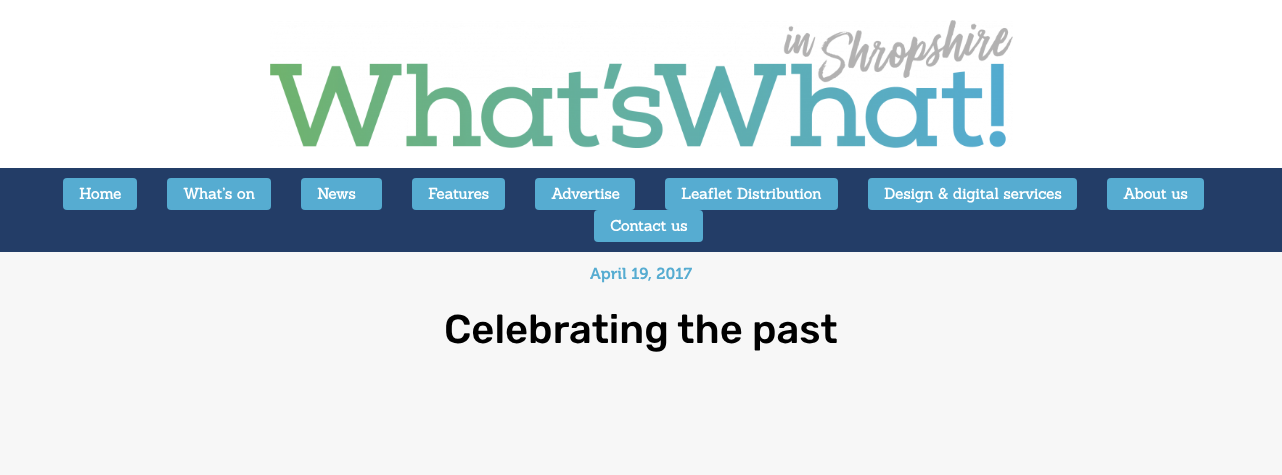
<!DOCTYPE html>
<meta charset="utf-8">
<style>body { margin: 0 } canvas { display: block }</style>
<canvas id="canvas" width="1282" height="475"></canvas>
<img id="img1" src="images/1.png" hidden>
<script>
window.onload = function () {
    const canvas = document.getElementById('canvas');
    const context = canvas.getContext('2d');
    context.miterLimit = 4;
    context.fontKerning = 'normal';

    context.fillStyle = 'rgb(255, 255, 255)';
    context.fillRect(0, 0, 1282, 475);
    context.drawImage(document.getElementById('img1'), 270, 20, 743, 128);
    context.fillStyle = 'rgb(35, 61, 103)';
    context.fillRect(0, 168, 1282, 84);
    context.fillStyle = 'rgb(86, 172, 209)';
    context.beginPath();
    context.roundRect(63, 178, 74, 32, 4);
    context.fill();
    context.beginPath();
    context.roundRect(167, 178, 104, 32, 4);
    context.fill();
    context.beginPath();
    context.roundRect(301, 178, 81, 32, 4);
    context.fill();
    context.beginPath();
    context.roundRect(412, 178, 93, 32, 4);
    context.fill();
    context.beginPath();
    context.roundRect(535, 178, 100, 32, 4);
    context.fill();
    context.beginPath();
    context.roundRect(665, 178, 173, 32, 4);
    context.fill();
    context.beginPath();
    context.roundRect(868, 178, 209, 32, 4);
    context.fill();
    context.beginPath();
    context.roundRect(1107, 178, 97, 32, 4);
    context.fill();
    context.beginPath();
    context.roundRect(594, 210, 109, 32, 4);
    context.fill();
    context.fillStyle = 'rgb(247, 247, 247)';
    context.fillRect(0, 252, 1282, 223);
    context.font = 'bold 15px Sanchez';
    context.fillStyle = 'rgb(255, 255, 255)';
    context.fillText('Home', 79, 199);
    context.fillText('What’s on', 183, 199);
    context.fillText('News', 317, 199);
    context.fillText('Features', 428, 199);
    context.fillText('Advertise', 551, 199);
    context.fillText('Leaflet Distribution', 681, 199);
    context.fillText('Design & digital services', 884, 199);
    context.fillText('About us', 1123, 199);
    context.fillText('Contact us', 610, 231);
    context.font = '600 16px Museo';
    context.fillStyle = 'rgb(86, 172, 209)';
    context.fillText('April 19, 2017', 590, 279);
    context.font = '500 40px Rubik';
    context.fillStyle = 'rgb(0, 0, 0)';
    context.fillText('Celebrating the past', 444, 343);
};
</script>
